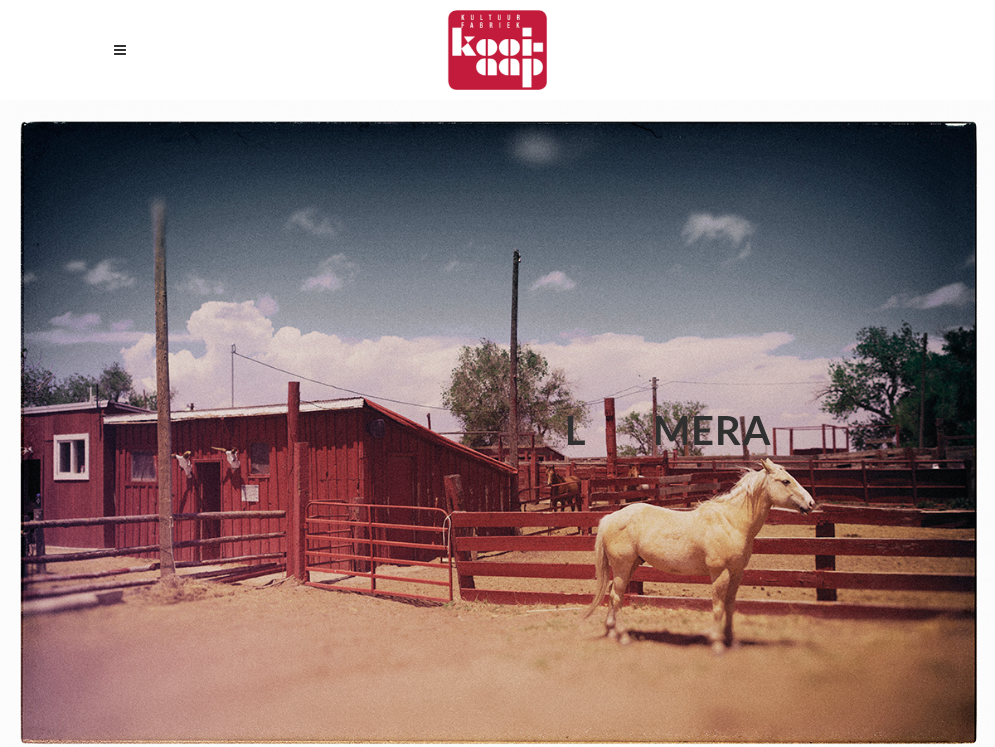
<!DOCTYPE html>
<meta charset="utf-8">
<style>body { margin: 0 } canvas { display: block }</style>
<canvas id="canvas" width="995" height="747"></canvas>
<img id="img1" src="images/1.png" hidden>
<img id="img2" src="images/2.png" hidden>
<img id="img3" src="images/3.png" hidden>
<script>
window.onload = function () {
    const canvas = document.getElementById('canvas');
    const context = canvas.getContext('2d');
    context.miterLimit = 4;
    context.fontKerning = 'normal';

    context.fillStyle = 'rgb(255, 255, 255)';
    context.fillRect(0, 0, 995, 747);
    context.drawImage(document.getElementById('img1'), 114, 45, 12, 10);
    context.drawImage(document.getElementById('img2'), 447, 10, 101, 80);
    context.drawImage(document.getElementById('img3'), 0, 100, 995, 647);
    context.letterSpacing = '1px';
    context.font = 'bold 40px Lato';
    context.fillStyle = 'rgb(48, 48, 48)';
    context.fillText('L', 565, 445);
    context.fillText('MERA', 653, 445);
};
</script>
